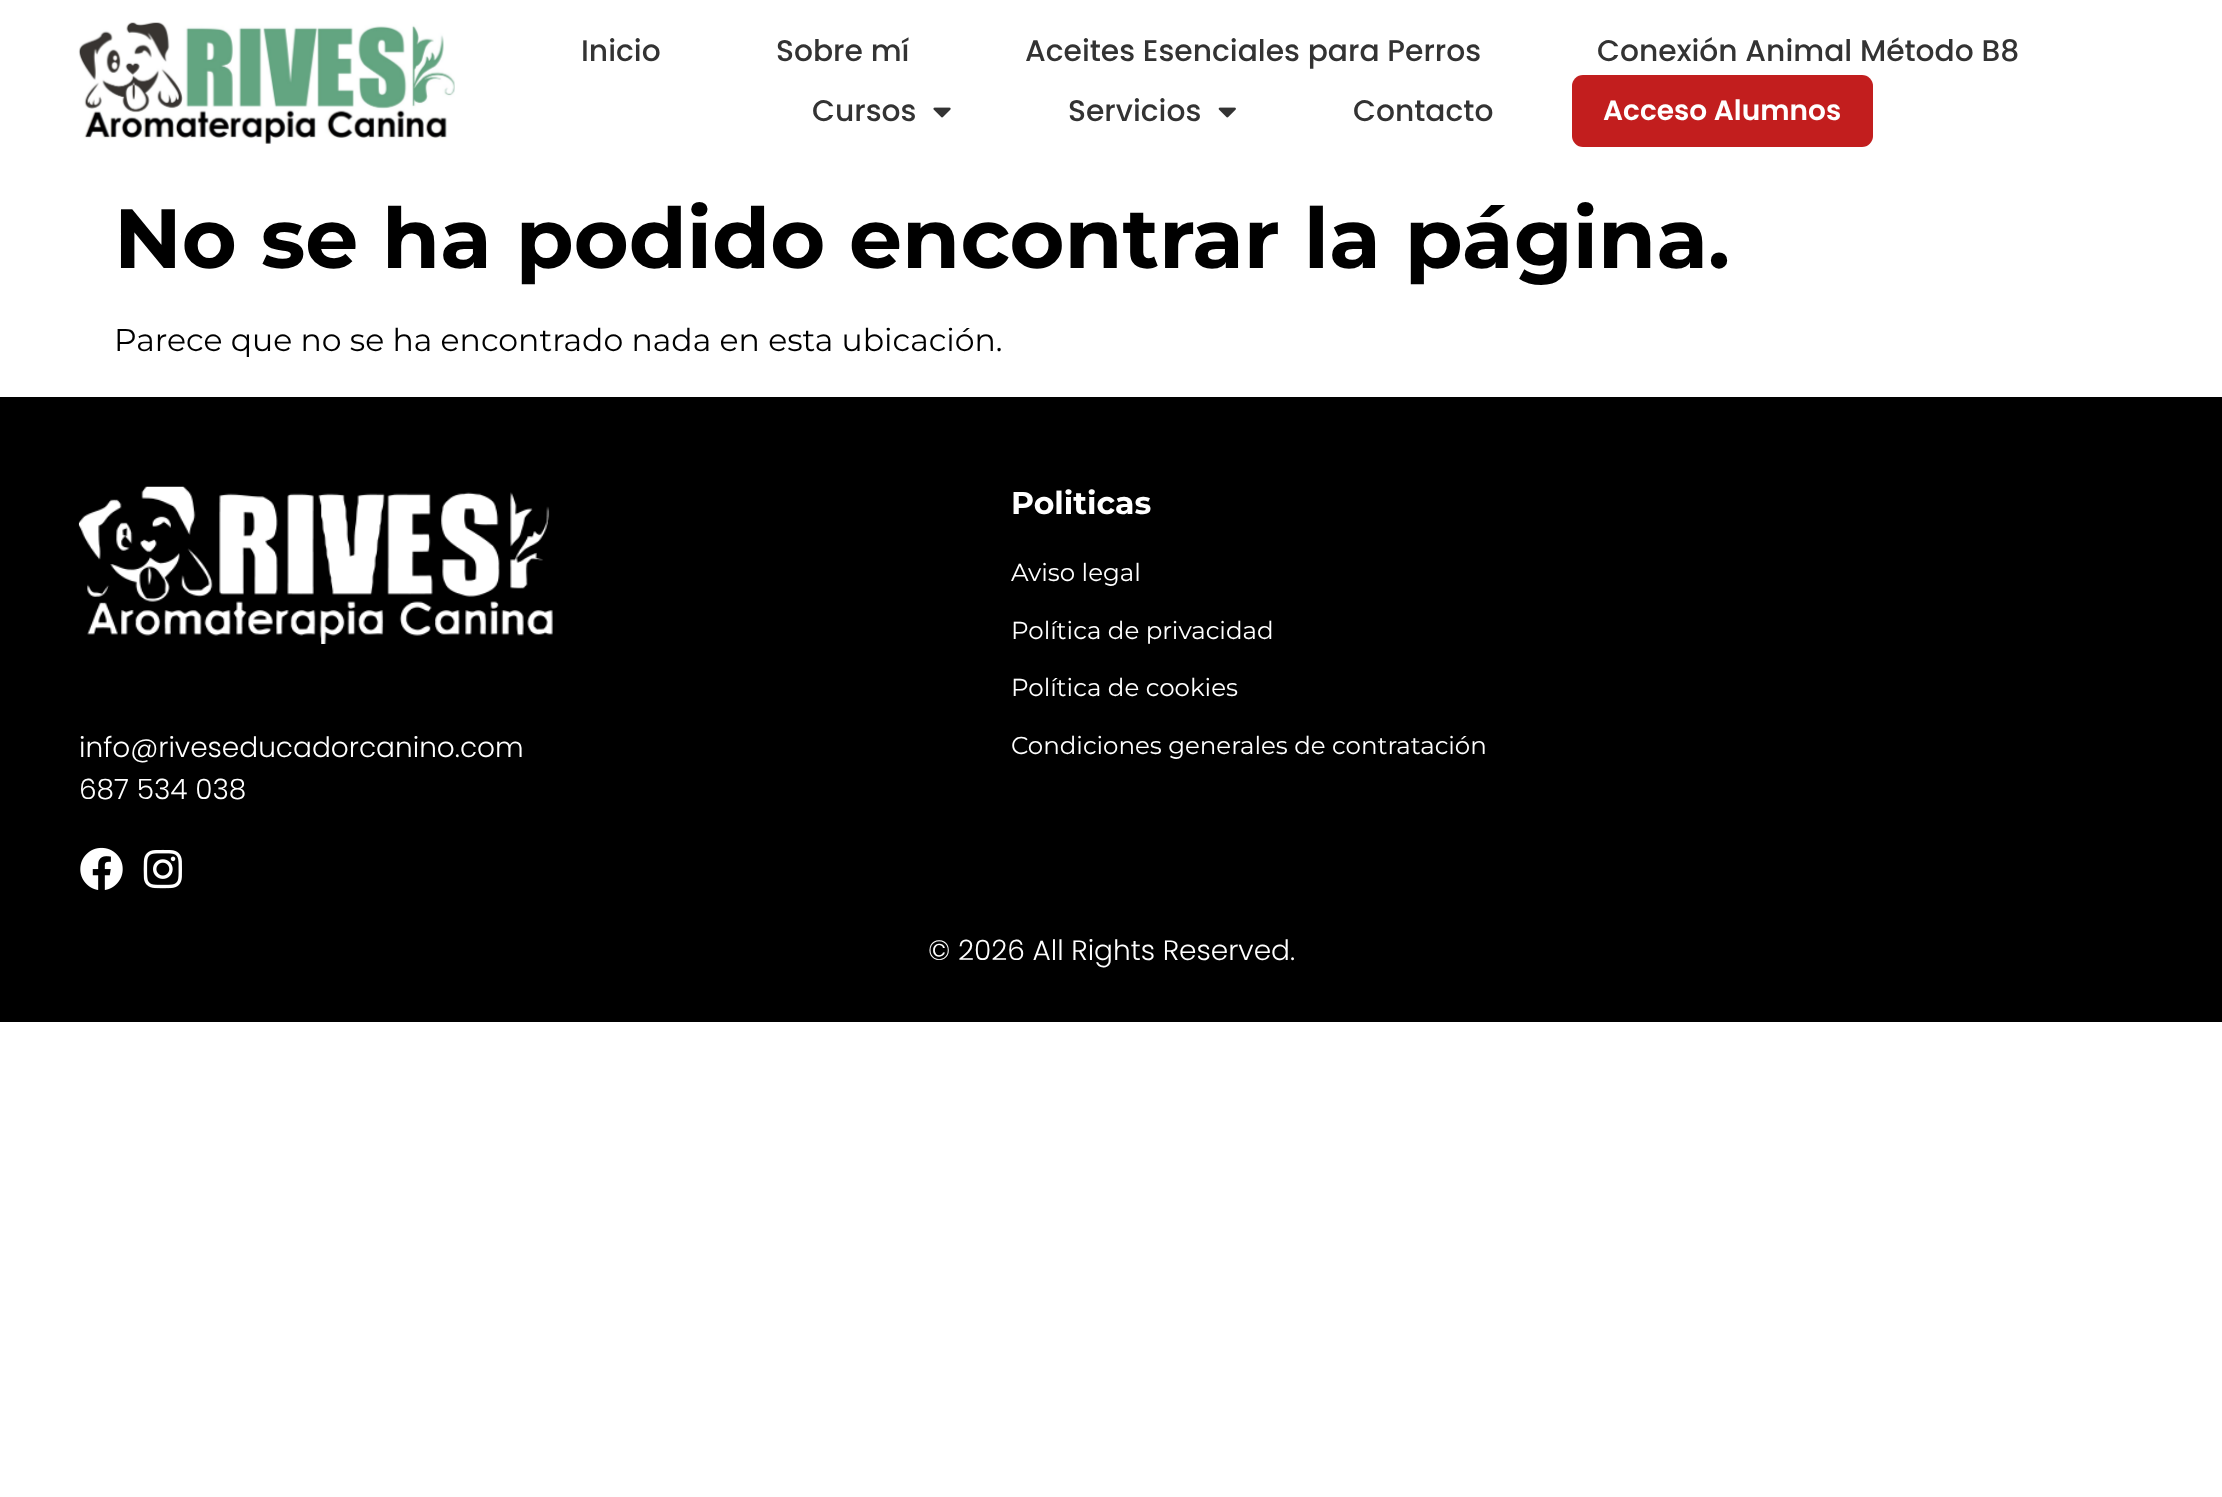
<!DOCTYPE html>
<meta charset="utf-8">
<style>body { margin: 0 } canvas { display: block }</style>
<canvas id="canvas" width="2222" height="1497"></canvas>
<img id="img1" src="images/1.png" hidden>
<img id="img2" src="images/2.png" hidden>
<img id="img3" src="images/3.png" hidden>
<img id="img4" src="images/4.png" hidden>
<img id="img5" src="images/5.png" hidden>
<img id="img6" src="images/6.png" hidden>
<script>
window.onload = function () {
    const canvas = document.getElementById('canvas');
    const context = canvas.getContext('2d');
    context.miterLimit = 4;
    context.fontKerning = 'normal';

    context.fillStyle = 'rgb(255, 255, 255)';
    context.fillRect(0, 0, 2222, 1497);
    context.drawImage(document.getElementById('img1'), 78, 22, 377, 122);
    context.drawImage(document.getElementById('img2'), 933, 107, 18, 11);
    context.drawImage(document.getElementById('img3'), 1218, 107, 18, 11);
    context.fillStyle = 'rgb(194, 30, 30)';
    context.beginPath();
    context.roundRect(1572, 75, 301, 72, 11);
    context.fill();
    context.fillStyle = 'rgb(0, 0, 0)';
    context.fillRect(0, 397, 2222, 494);
    context.drawImage(document.getElementById('img4'), 78, 486, 475, 158);
    context.drawImage(document.getElementById('img5'), 80, 847, 43, 43);
    context.drawImage(document.getElementById('img6'), 143, 849, 39, 40);
    context.fillRect(0, 891, 2222, 131);
    context.font = '500 29.75px Poppins';
    context.fillStyle = 'rgb(51, 51, 51)';
    context.fillText('Inicio', 581, 61);
    context.fillText('Sobre mí', 776, 61);
    context.fillText('Aceites Esenciales para Perros', 1025, 61);
    context.fillText('Conexión Animal Método B8', 1597, 61);
    context.fillText('Cursos', 812, 121);
    context.fillText('Servicios', 1068, 121);
    context.fillText('Contacto', 1353, 121);
    context.font = '600 28px Poppins';
    context.fillStyle = 'rgb(255, 255, 255)';
    context.fillText('Acceso Alumnos', 1603, 120);
    context.font = 'bold 84px Montserrat';
    context.fillStyle = 'rgb(0, 0, 0)';
    context.fillText('No se ha podido encontrar la página.', 114, 268);
    context.font = '31.5px Montserrat';
    context.fillText('Parece que no se ha encontrado nada en esta ubicación.', 114, 351);
    context.font = 'bold 31.5px Montserrat';
    context.fillStyle = 'rgb(255, 255, 255)';
    context.fillText('Politicas', 1011, 514);
    context.font = '24.5px Montserrat';
    context.fillText('Aviso legal', 1011, 581);
    context.fillText('Política de privacidad', 1011, 639);
    context.fillText('Política de cookies', 1011, 696);
    context.fillText('Condiciones generales de contratación', 1011, 754);
    context.font = '300 28px Poppins';
    context.fillText('info@riveseducadorcanino.com', 79, 757);
    context.fillText('687 534 038', 79, 799);
    context.fillText('© 2026 All Rights Reserved.', 928, 960);
};
</script>
